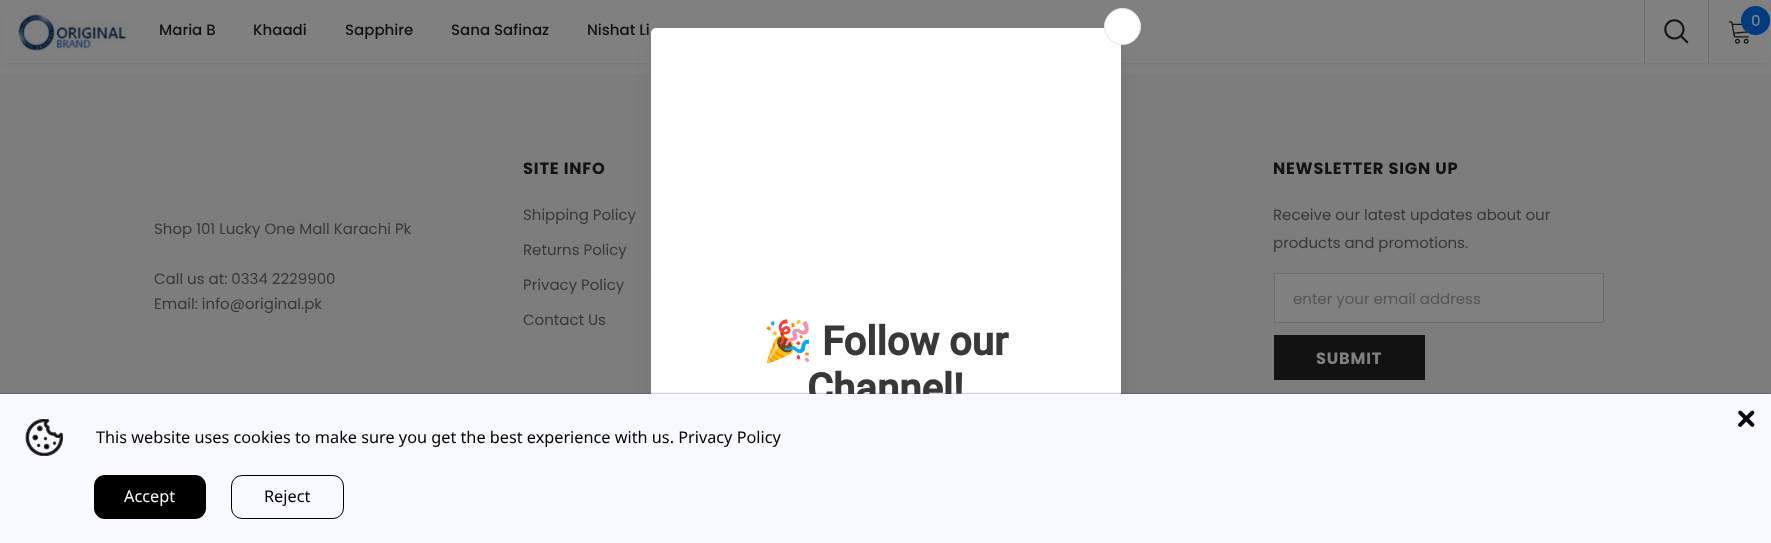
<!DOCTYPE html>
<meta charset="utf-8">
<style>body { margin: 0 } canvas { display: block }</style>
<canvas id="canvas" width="1771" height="543"></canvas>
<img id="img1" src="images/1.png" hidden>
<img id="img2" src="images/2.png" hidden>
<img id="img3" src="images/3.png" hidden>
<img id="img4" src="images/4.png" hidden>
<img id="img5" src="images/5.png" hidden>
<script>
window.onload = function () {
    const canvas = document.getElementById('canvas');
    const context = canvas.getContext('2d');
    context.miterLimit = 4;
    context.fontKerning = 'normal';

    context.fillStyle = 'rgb(128, 128, 128)';
    context.fillRect(0, 0, 1771, 543);
    context.fillStyle = 'rgba(0, 0, 0, 0.1)';
    context.filter = 'blur(2px)';
    context.beginPath();
    context.rect(4, 8, 1764, 55);
    context.fill();
    context.filter = 'none';
    context.fillStyle = 'rgb(128, 128, 128)';
    context.fillRect(2, 6, 1768, 57);
    context.drawImage(document.getElementById('img1'), 18, 14, 109, 37);
    context.fillStyle = 'rgb(111, 111, 111)';
    context.fillRect(1644, 0, 1, 63);
    context.drawImage(document.getElementById('img2'), 1664, 19, 25, 25);
    context.fillRect(1708, 0, 1, 63);
    context.drawImage(document.getElementById('img3'), 1728, 21, 21, 23);
    context.fillStyle = 'rgb(0, 60, 128)';
    context.beginPath();
    context.arc(1755.5, 20.5, 14.5, 0, 2 * Math.PI);
    context.fill();
    context.fillStyle = 'rgb(125, 125, 125)';
    context.fillRect(0, 74, 1771, 320);
    context.fillStyle = 'rgb(128, 128, 128)';
    context.beginPath();
    context.rect(1274.5, 273.5, 329, 49);
    context.fill();
    context.strokeStyle = 'rgb(108, 108, 108)';
    context.stroke();
    context.fillStyle = 'rgb(18, 18, 18)';
    context.fillRect(1274, 335, 151, 45);
    context.fillStyle = 'rgba(0, 0, 0, 0.1)';
    context.filter = 'blur(9.5px)';
    context.beginPath();
    context.roundRect(655, 44, 463, 481, 0.5);
    context.fill();
    context.filter = 'none';
    context.fillStyle = 'rgb(255, 255, 255)';
    context.beginPath();
    context.roundRect(651, 28, 470, 488, 5);
    context.fill();
    context.beginPath();
    context.arc(1122.5, 26.5, 18, 0, 2 * Math.PI);
    context.fill();
    context.strokeStyle = 'rgb(226, 232, 240)';
    context.stroke();
    context.save();
    context.beginPath();
    context.rect(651, 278, 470, 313);
    context.clip();
    context.fillStyle = 'rgba(0, 0, 0, 0.12)';
    context.filter = 'blur(12.5px)';
    context.beginPath();
    context.roundRect(655, 281, 463, 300, 0.5);
    context.fill();
    context.filter = 'none';
    context.restore();
    context.beginPath();
    context.roundRect(651, 278, 470, 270, 5);
    context.fill();
    context.fillStyle = 'rgba(0, 0, 0, 0.5)';
    context.filter = 'blur(1px)';
    context.beginPath();
    context.rect(0, 394, 1771, 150);
    context.fill();
    context.filter = 'none';
    context.font = '500 15px Poppins';
    context.fillStyle = 'rgb(128, 128, 128)';
    context.fillText('0', 1751, 26);
    context.fillStyle = 'rgb(18, 18, 18)';
    context.fillText('Maria B', 159, 35);
    context.fillText('Khaadi', 253, 35);
    context.fillText('Sapphire', 345, 35);
    context.fillText('Sana Safinaz', 451, 35);
    context.fillText('Nishat Li', 587, 35);
    context.font = '15px Poppins';
    context.fillStyle = 'rgb(56, 56, 56)';
    context.fillText('Shop 101 Lucky One Mall Karachi Pk', 154, 234);
    context.fillText('Call us at: 0334 2229900', 154, 284);
    context.fillText('Email: info@original.pk', 154, 309);
    context.letterSpacing = '0.8px';
    context.font = 'bold 16.25px Poppins';
    context.fillStyle = 'rgb(18, 18, 18)';
    context.fillText('SITE INFO', 523, 174);
    context.letterSpacing = '0px';
    context.font = '15px Poppins';
    context.fillStyle = 'rgb(56, 56, 56)';
    context.fillText('Shipping Policy', 523, 220);
    context.fillText('Returns Policy', 523, 255);
    context.fillText('Privacy Policy', 523, 290);
    context.fillText('Contact Us', 523, 325);
    context.letterSpacing = '0.8px';
    context.font = 'bold 16.25px Poppins';
    context.fillStyle = 'rgb(18, 18, 18)';
    context.fillText('NEWSLETTER SIGN UP', 1273, 174);
    context.letterSpacing = '0px';
    context.font = '15px Poppins';
    context.fillStyle = 'rgb(56, 56, 56)';
    context.fillText('Receive our latest updates about our', 1273, 220);
    context.fillText('products and promotions.', 1273, 248);
    context.fillStyle = 'rgb(85, 85, 85)';
    context.fillText('enter your email address', 1293, 304);
    context.letterSpacing = '0.8px';
    context.font = 'bold 16.25px Poppins';
    context.fillStyle = 'rgb(128, 128, 128)';
    context.fillText('SUBMIT', 1316, 364);
    context.letterSpacing = '0px';
    context.font = 'bold 40px Noto Color Emoji';
    context.fillStyle = 'rgb(56, 56, 56)';
    context.fillText('🎉', 763, 355);
    context.font = 'bold 40px Roboto';
    context.fillText('Follow our', 822, 355);
    context.fillText('Channel!', 807, 402);
    context.fillStyle = 'rgb(248, 248, 255)';
    context.fillRect(0, 394, 1771, 149);
    context.drawImage(document.getElementById('img4'), 1738, 410, 17, 17);
    context.drawImage(document.getElementById('img5'), 25, 419, 38, 37);
    context.font = '16.25px Noto Sans';
    context.fillStyle = 'rgb(0, 0, 0)';
    context.fillText('This website uses cookies to make sure you get the best experience with us. Privacy Policy', 96, 443);
    context.beginPath();
    context.roundRect(94, 475, 112, 44, 11);
    context.fill();
    context.fillStyle = 'rgb(248, 248, 248)';
    context.fillText('Accept', 124, 502);
    context.beginPath();
    context.roundRect(231.5, 475.5, 112, 43, 10.5);
    context.strokeStyle = 'rgb(0, 0, 0)';
    context.stroke();
    context.fillStyle = 'rgb(0, 0, 0)';
    context.fillText('Reject', 264, 502);
};
</script>
